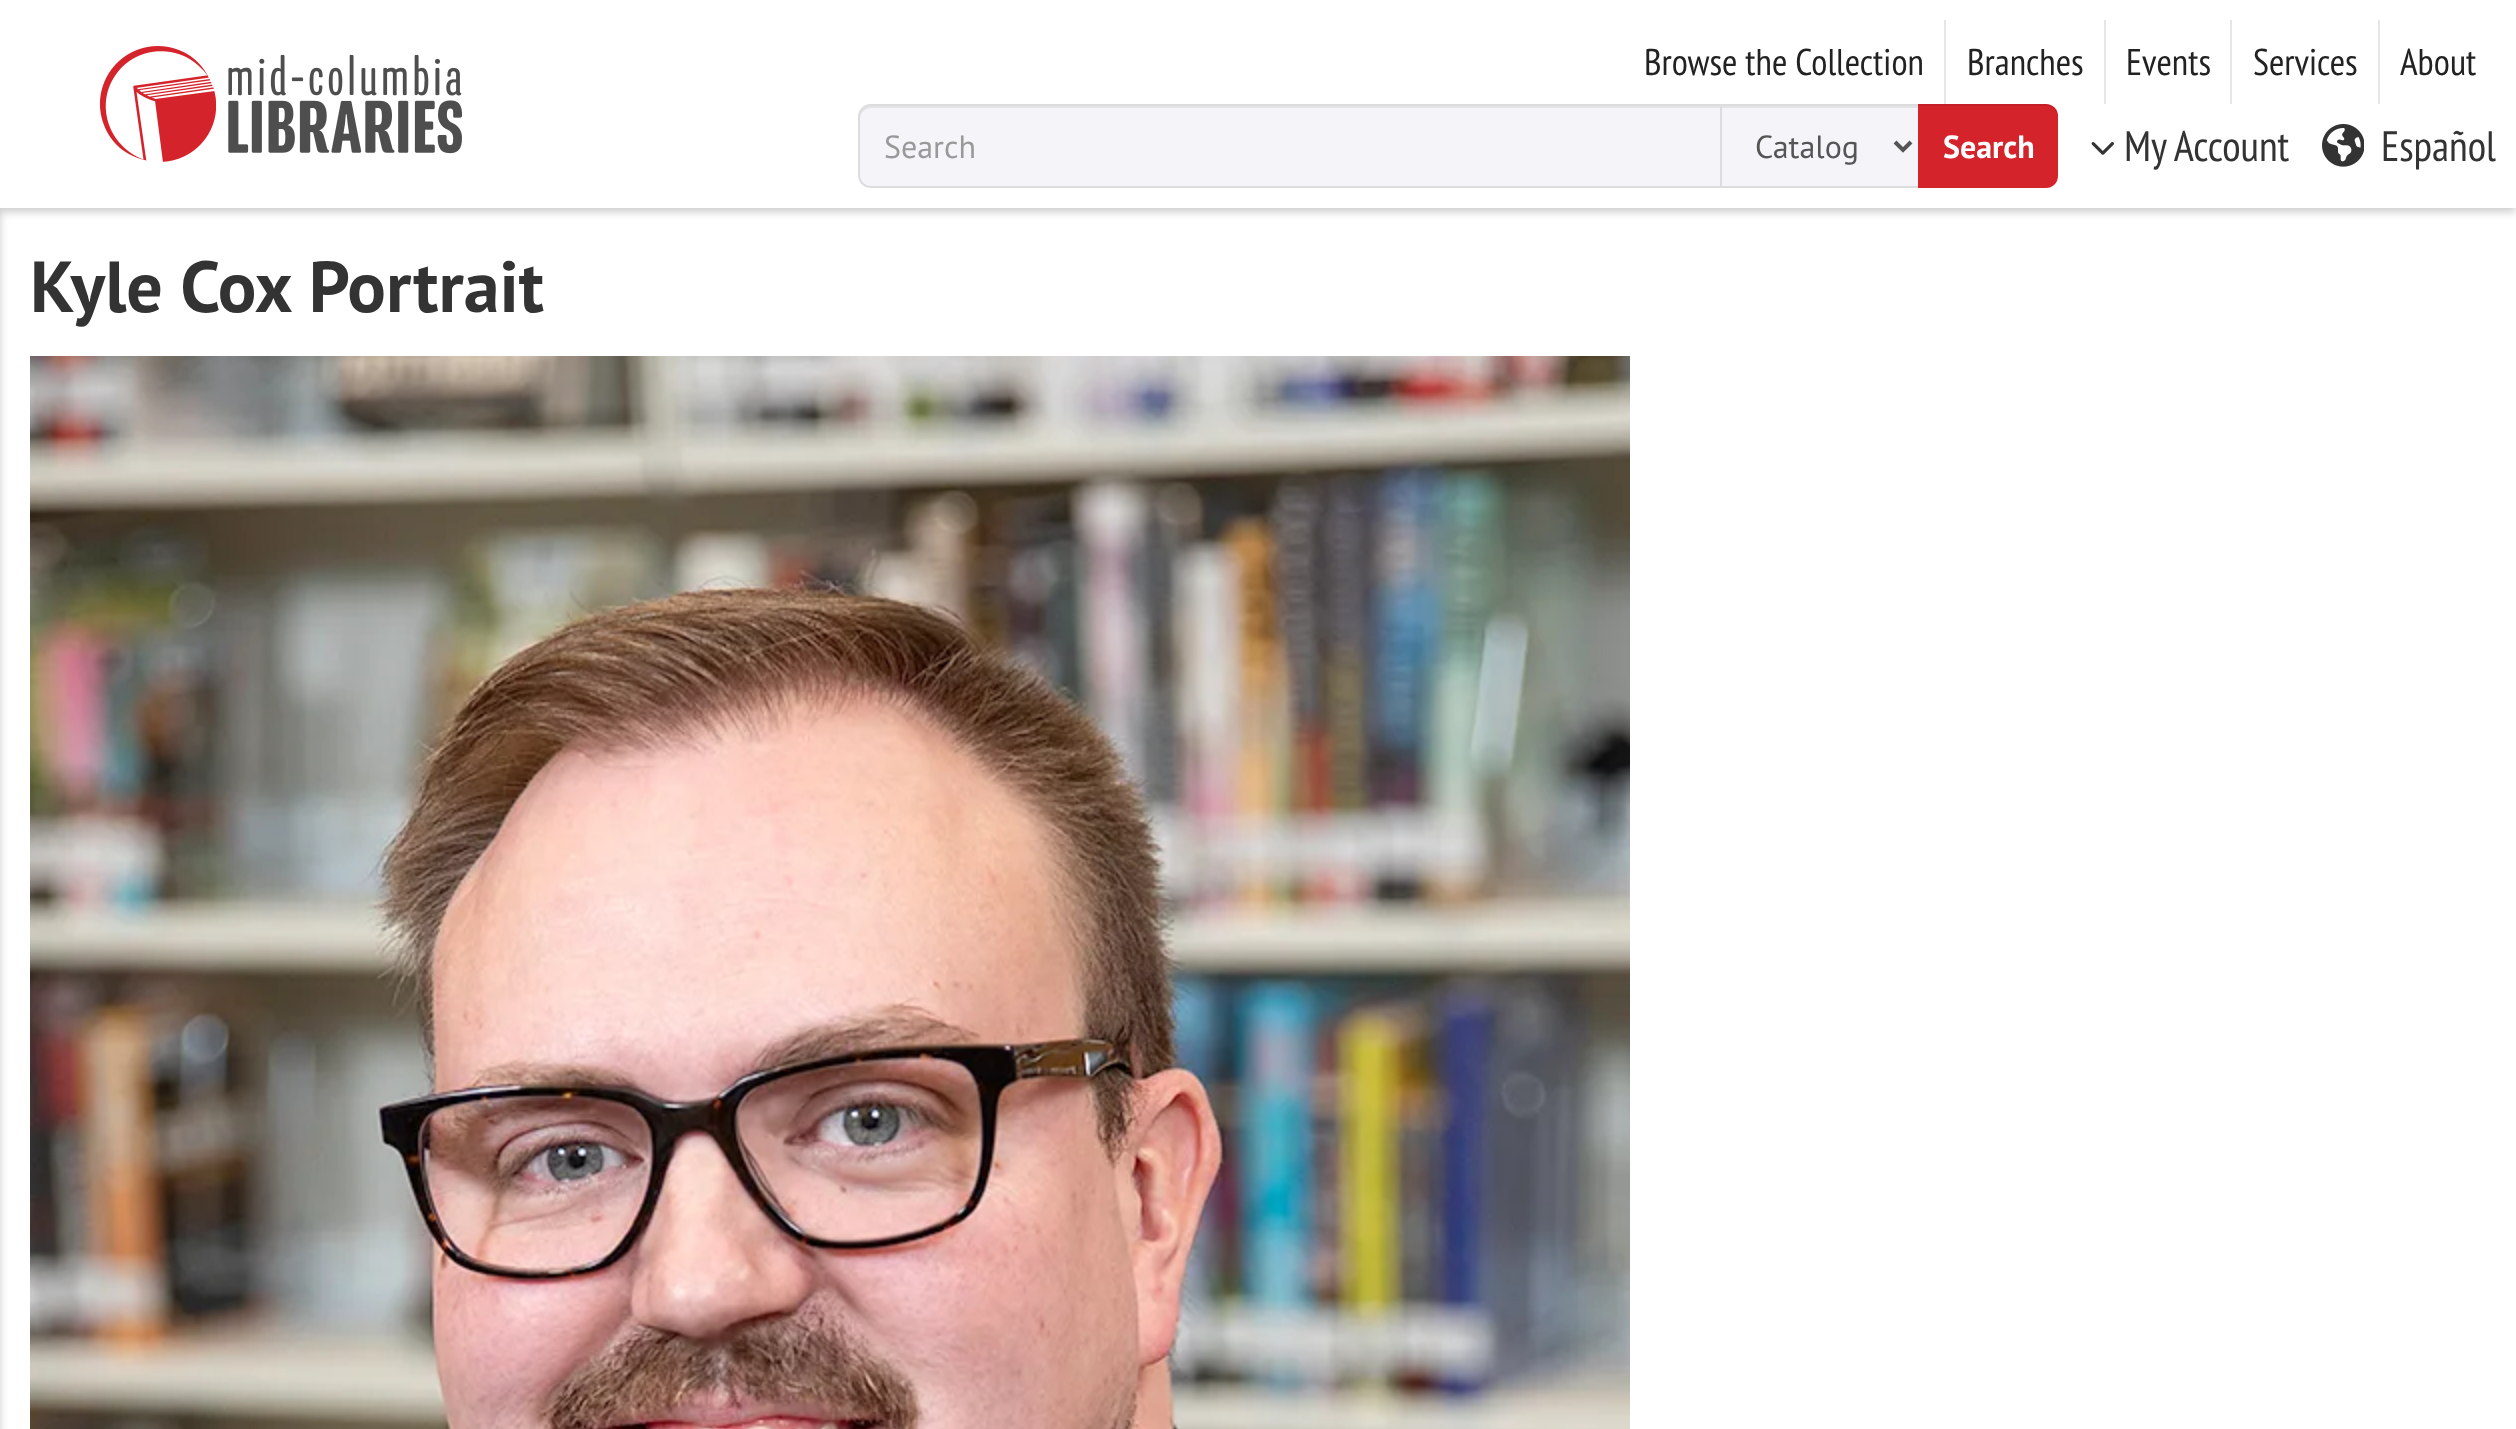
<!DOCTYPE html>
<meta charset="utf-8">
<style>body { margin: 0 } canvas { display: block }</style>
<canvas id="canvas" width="2516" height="1429"></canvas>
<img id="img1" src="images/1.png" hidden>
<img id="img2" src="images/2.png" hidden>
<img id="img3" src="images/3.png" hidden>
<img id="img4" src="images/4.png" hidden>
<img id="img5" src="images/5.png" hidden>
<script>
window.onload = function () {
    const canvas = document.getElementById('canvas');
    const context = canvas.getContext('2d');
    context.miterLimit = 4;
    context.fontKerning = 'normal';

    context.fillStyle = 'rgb(255, 255, 255)';
    context.fillRect(0, 0, 2516, 1429);
    context.fillStyle = 'rgba(0, 0, 0, 0.2)';
    context.filter = 'blur(4px)';
    context.beginPath();
    context.rect(-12, 4, 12, 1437);
    context.fill();
    context.filter = 'none';
    context.filter = 'blur(4px)';
    context.beginPath();
    context.rect(0, 4, 2516, 208);
    context.fill();
    context.filter = 'none';
    context.fillStyle = 'rgb(255, 255, 255)';
    context.fillRect(0, 0, 2516, 208);
    context.drawImage(document.getElementById('img1'), 100, 46, 116, 116);
    context.drawImage(document.getElementById('img2'), 228, 54, 234, 100);
    context.fillStyle = 'rgb(230, 230, 230)';
    context.fillRect(1944, 20, 2, 84);
    context.fillRect(2104, 20, 2, 84);
    context.fillRect(2230, 20, 2, 84);
    context.fillRect(2378, 20, 2, 84);
    context.fillStyle = 'rgb(245, 245, 249)';
    context.beginPath();
    context.roundRect(858, 104, 862, 84, [12, 0, 0, 12]);
    context.fill();
    context.fillStyle = 'rgb(227, 227, 230)';
    context.beginPath();
    context.moveTo(871, 108);
    context.lineTo(1720, 108);
    context.lineTo(1720, 106);
    context.lineTo(870, 106);
    context.bezierCurveTo(864, 106, 860, 110, 860, 116);
    context.lineTo(860, 119);
    context.bezierCurveTo(860, 113, 865, 108, 871, 108);
    context.closePath();
    context.fill();
    context.fillStyle = 'rgb(221, 221, 221)';
    context.beginPath();
    context.moveTo(871, 104);
    context.lineTo(1720, 104);
    context.lineTo(1720, 188);
    context.lineTo(871, 188);
    context.bezierCurveTo(864, 188, 858, 182, 858, 175);
    context.lineTo(858, 117);
    context.bezierCurveTo(858, 110, 864, 104, 871, 104);
    context.closePath();
    context.moveTo(871, 106);
    context.lineTo(1720, 106);
    context.lineTo(1720, 186);
    context.lineTo(871, 186);
    context.bezierCurveTo(865, 186, 860, 181, 860, 175);
    context.lineTo(860, 117);
    context.bezierCurveTo(860, 111, 865, 106, 871, 106);
    context.closePath();
    context.fill('evenodd');
    context.fillStyle = 'rgb(245, 245, 249)';
    context.fillRect(1722, 108, 196, 78);
    context.fillStyle = 'rgb(227, 227, 230)';
    context.fillRect(1722, 106, 196, 2);
    context.fillStyle = 'rgb(221, 221, 221)';
    context.fillRect(1720, 104, 198, 2);
    context.fillRect(1720, 186, 198, 2);
    context.fillRect(1720, 104, 2, 84);
    context.beginPath();
    context.moveTo(1895, 142);
    context.lineTo(1903, 150);
    context.lineTo(1911, 142);
    context.strokeStyle = 'rgb(85, 85, 85)';
    context.lineWidth = 4;
    context.stroke();
    context.fillStyle = 'rgb(212, 35, 42)';
    context.beginPath();
    context.roundRect(1918, 104, 140, 84, [0, 12, 12, 0]);
    context.fill();
    context.fillStyle = 'rgba(0, 0, 0, 0.07)';
    context.beginPath();
    context.moveTo(1918, 106);
    context.lineTo(2045, 106);
    context.bezierCurveTo(2052, 106, 2058, 112, 2058, 119);
    context.lineTo(2058, 116);
    context.bezierCurveTo(2058, 109, 2053, 104, 2046, 104);
    context.lineTo(1918, 104);
    context.closePath();
    context.fill();
    context.drawImage(document.getElementById('img3'), 2091, 142, 23, 13);
    context.drawImage(document.getElementById('img4'), 2322, 124, 42, 43);
    context.drawImage(document.getElementById('img5'), 30, 356, 1600, 1073);
    context.font = '37.25px PT Sans Narrow';
    context.fillStyle = 'rgb(34, 34, 34)';
    context.fillText('Browse the Collection', 1644, 75);
    context.fillText('Branches', 1967, 75);
    context.fillText('Events', 2126, 75);
    context.fillText('Services', 2253, 75);
    context.fillText('About', 2400, 75);
    context.font = '32px PT Sans';
    context.fillStyle = 'rgb(153, 153, 153)';
    context.fillText('Search', 884, 158);
    context.fillStyle = 'rgb(85, 85, 85)';
    context.fillText('Catalog', 1755, 158);
    context.font = 'bold 32px PT Sans';
    context.fillStyle = 'rgb(255, 255, 255)';
    context.fillText('Search', 1943, 158);
    context.font = '42.5px PT Sans Narrow';
    context.fillStyle = 'rgb(51, 51, 51)';
    context.fillText('My Account', 2124, 161);
    context.fillText('Español', 2381, 161);
    context.font = 'bold 72px PT Sans';
    context.fillText('Kyle Cox Portrait', 30, 312);
};
</script>
